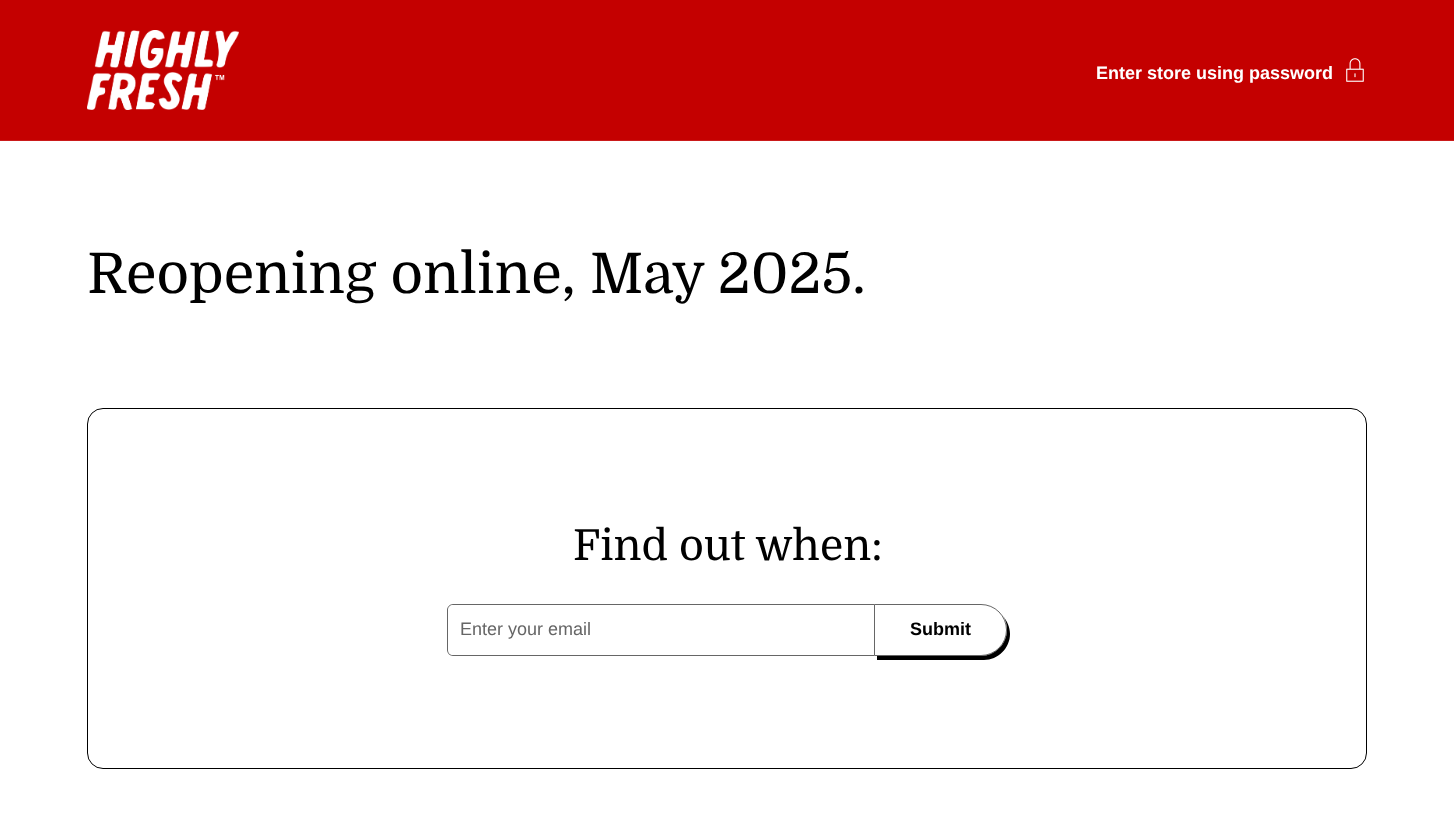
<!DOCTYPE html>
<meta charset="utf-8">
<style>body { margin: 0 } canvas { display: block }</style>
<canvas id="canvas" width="1454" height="837"></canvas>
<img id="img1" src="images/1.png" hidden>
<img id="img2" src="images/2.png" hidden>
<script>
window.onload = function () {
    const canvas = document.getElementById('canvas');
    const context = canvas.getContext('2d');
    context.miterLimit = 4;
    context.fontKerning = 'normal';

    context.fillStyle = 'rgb(255, 255, 255)';
    context.fillRect(0, 0, 1454, 837);
    context.fillStyle = 'rgb(196, 0, 0)';
    context.fillRect(0, 0, 1454, 140);
    context.fillStyle = 'rgb(202, 26, 26)';
    context.fillRect(0, 140, 1454, 1);
    context.drawImage(document.getElementById('img1'), 87, 30, 152, 80);
    context.drawImage(document.getElementById('img2'), 1346, 58, 18, 24);
    context.beginPath();
    context.roundRect(87.5, 408.5, 1279, 360, 15.5);
    context.strokeStyle = 'rgb(0, 0, 0)';
    context.stroke();
    context.fillStyle = 'rgb(102, 102, 102)';
    context.beginPath();
    context.moveTo(453, 604);
    context.lineTo(874, 604);
    context.lineTo(874, 656);
    context.lineTo(453, 656);
    context.bezierCurveTo(450, 656, 447, 653, 447, 650);
    context.lineTo(447, 610);
    context.bezierCurveTo(447, 607, 450, 604, 453, 604);
    context.closePath();
    context.moveTo(453, 605);
    context.lineTo(874, 605);
    context.lineTo(874, 655);
    context.lineTo(453, 655);
    context.bezierCurveTo(450, 655, 448, 653, 448, 650);
    context.lineTo(448, 610);
    context.bezierCurveTo(448, 607, 450, 605, 453, 605);
    context.closePath();
    context.fill('evenodd');
    context.fillStyle = 'rgb(0, 0, 0)';
    context.beginPath();
    context.moveTo(877, 656);
    context.lineTo(877, 660);
    context.lineTo(984, 660);
    context.bezierCurveTo(998, 660, 1010, 648, 1010, 634);
    context.bezierCurveTo(1010, 627, 1007, 621, 1003, 616);
    context.bezierCurveTo(1006, 620, 1007, 625, 1007, 630);
    context.bezierCurveTo(1007, 644, 995, 656, 981, 656);
    context.closePath();
    context.fill();
    context.beginPath();
    context.roundRect(874.5, 604.5, 132, 51, [0, 25.5, 25.5, 0]);
    context.strokeStyle = 'rgba(0, 0, 0, 0.6)';
    context.stroke();
    context.font = 'bold 18px Liberation Sans';
    context.fillStyle = 'rgb(255, 255, 255)';
    context.fillText('Enter store using password', 1096, 79);
    context.font = '56px Domine';
    context.fillStyle = 'rgb(0, 0, 0)';
    context.fillText('Reopening online, May 2025.', 87, 293);
    context.font = '42.75px Domine';
    context.fillText('Find out when:', 573, 560);
    context.font = '18px Liberation Sans';
    context.fillStyle = 'rgb(102, 102, 102)';
    context.fillText('Enter your email', 460, 635);
    context.font = 'bold 18px Liberation Sans';
    context.fillStyle = 'rgb(0, 0, 0)';
    context.fillText('Submit', 910, 635);
};
</script>
